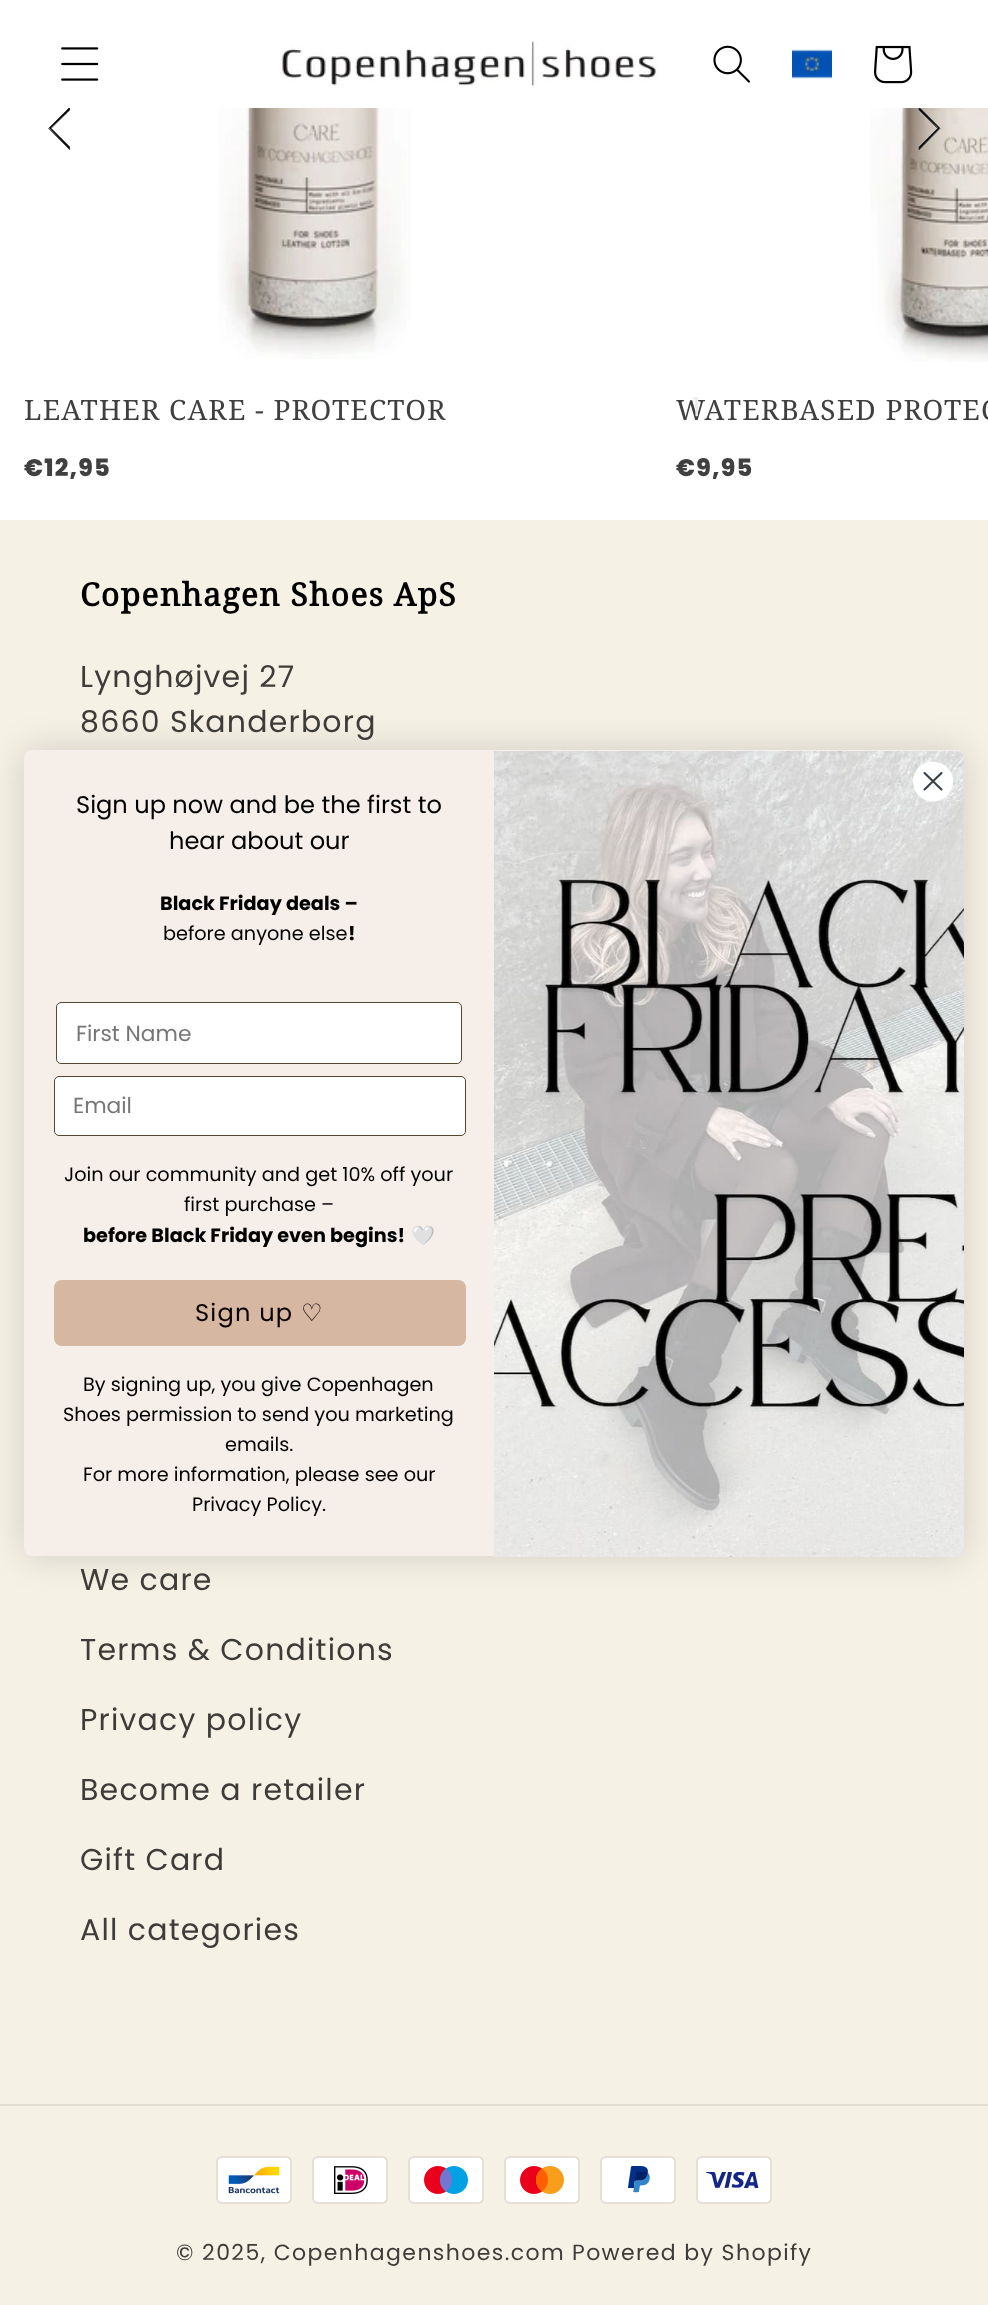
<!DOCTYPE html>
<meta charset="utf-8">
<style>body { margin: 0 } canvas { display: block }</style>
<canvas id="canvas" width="988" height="2305"></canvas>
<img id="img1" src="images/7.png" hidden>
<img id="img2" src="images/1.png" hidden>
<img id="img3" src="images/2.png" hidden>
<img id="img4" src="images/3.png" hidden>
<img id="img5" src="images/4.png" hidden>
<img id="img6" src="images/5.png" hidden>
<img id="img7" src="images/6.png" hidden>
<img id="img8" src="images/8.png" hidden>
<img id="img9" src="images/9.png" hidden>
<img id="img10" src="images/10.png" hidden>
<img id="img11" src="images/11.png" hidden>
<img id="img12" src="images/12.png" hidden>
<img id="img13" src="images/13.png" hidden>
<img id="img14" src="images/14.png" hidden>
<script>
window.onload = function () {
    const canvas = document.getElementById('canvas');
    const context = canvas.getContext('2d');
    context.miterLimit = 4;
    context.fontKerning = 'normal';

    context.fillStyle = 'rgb(255, 255, 255)';
    context.fillRect(0, 0, 988, 2305);
    context.fillStyle = 'rgb(0, 0, 0)';
    context.beginPath();
    context.moveTo(49, 128);
    context.lineTo(70, 150);
    context.lineTo(70, 147);
    context.lineTo(51, 128);
    context.lineTo(70, 110);
    context.lineTo(70, 107);
    context.closePath();
    context.fill();
    context.beginPath();
    context.moveTo(48.5, 128.5);
    context.lineTo(69.5, 149.5);
    context.lineTo(69.5, 147);
    context.lineTo(51, 128.5);
    context.lineTo(69.5, 110);
    context.lineTo(69.5, 107.5);
    context.closePath();
    context.strokeStyle = 'rgb(51, 51, 51)';
    context.lineWidth = 0.8;
    context.stroke();
    context.drawImage(document.getElementById('img1'), 870, 108, 118, 254);
    context.beginPath();
    context.moveTo(940, 128);
    context.lineTo(919, 107);
    context.lineTo(919, 110);
    context.lineTo(938, 128);
    context.lineTo(919, 147);
    context.lineTo(919, 150);
    context.closePath();
    context.fill();
    context.beginPath();
    context.moveTo(940, 128.5);
    context.lineTo(919, 107.5);
    context.lineTo(919, 110);
    context.lineTo(937.5, 128.5);
    context.lineTo(919, 147);
    context.lineTo(919, 149.5);
    context.closePath();
    context.stroke();
    context.fillStyle = 'rgb(255, 255, 255)';
    context.fillRect(68, 106, 852, 2);
    context.drawImage(document.getElementById('img2'), 61, 47, 38, 34);
    context.drawImage(document.getElementById('img3'), 280, 41, 378, 45);
    context.drawImage(document.getElementById('img4'), 713, 45, 37, 38);
    context.drawImage(document.getElementById('img5'), 792, 49, 40, 30);
    context.drawImage(document.getElementById('img6'), 874, 45, 39, 39);
    context.drawImage(document.getElementById('img7'), 218, 108, 193, 251);
    context.fillStyle = 'rgb(246, 241, 229)';
    context.fillRect(0, 520, 988, 1785);
    context.fillStyle = 'rgb(226, 222, 211)';
    context.fillRect(0, 2104, 988, 2);
    context.drawImage(document.getElementById('img8'), 216, 2156, 76, 48);
    context.drawImage(document.getElementById('img9'), 312, 2156, 76, 48);
    context.drawImage(document.getElementById('img10'), 408, 2156, 76, 48);
    context.drawImage(document.getElementById('img11'), 504, 2156, 76, 48);
    context.drawImage(document.getElementById('img12'), 600, 2156, 76, 48);
    context.drawImage(document.getElementById('img13'), 696, 2156, 76, 48);
    context.fillStyle = 'rgba(0, 0, 0, 0.15)';
    context.filter = 'blur(18px)';
    context.beginPath();
    context.roundRect(24, 750, 940, 806, 8);
    context.fill();
    context.filter = 'none';
    context.fillStyle = 'rgb(245, 238, 233)';
    context.beginPath();
    context.roundRect(24, 750, 940, 806, 8);
    context.fill();
    context.drawImage(document.getElementById('img14'), 494, 751, 470, 806);
    context.fillStyle = 'rgb(255, 255, 255)';
    context.beginPath();
    context.arc(933, 781.5, 20, 0, 2 * Math.PI);
    context.fill();
    context.beginPath();
    context.moveTo(924.5, 773);
    context.lineTo(941.5, 789.5);
    context.moveTo(924.5, 789.5);
    context.lineTo(941.5, 773);
    context.closePath();
    context.strokeStyle = 'rgb(55, 63, 71)';
    context.lineWidth = 2.1;
    context.lineCap = 'round';
    context.lineJoin = 'round';
    context.stroke();
    context.beginPath();
    context.roundRect(56.5, 1002.5, 405, 61, 4.5);
    context.fill();
    context.strokeStyle = 'rgb(84, 70, 47)';
    context.lineWidth = 1;
    context.lineJoin = 'miter';
    context.stroke();
    context.beginPath();
    context.roundRect(54.5, 1076.5, 411, 59, 4.5);
    context.fill();
    context.stroke();
    context.fillStyle = 'rgb(213, 183, 162)';
    context.beginPath();
    context.roundRect(54, 1280, 412, 66, 8);
    context.fill();
    context.letterSpacing = '1.2px';
    context.font = '28px Noto Serif';
    context.fillStyle = 'rgb(64, 64, 64)';
    context.fillText('LEATHER CARE - PROTECTOR', 24, 420);
    context.font = '800 24px Poppins';
    context.fillText('€12,95', 24, 476);
    context.font = '28px Noto Serif';
    context.fillText('WATERBASED PROTEC', 676, 420);
    context.font = '26px Poppins';
    context.fillStyle = 'rgb(235, 235, 235)';
    context.fillText('1', 692, 416);
    context.font = '800 24px Poppins';
    context.fillStyle = 'rgb(64, 64, 64)';
    context.fillText('€9,95', 676, 476);
    context.font = 'bold 32px Noto Serif';
    context.fillStyle = 'rgb(0, 0, 0)';
    context.fillText('Copenhagen Shoes ApS', 80, 606);
    context.font = '30px Poppins';
    context.fillStyle = 'rgb(62, 60, 57)';
    context.fillText('Lynghøjvej 27', 80, 687);
    context.fillText('8660 Skanderborg', 80, 732);
    context.fillText('We care', 80, 1590);
    context.fillText('Terms & Conditions', 80, 1660);
    context.fillText('Privacy policy', 80, 1730);
    context.fillText('Become a retailer', 80, 1800);
    context.fillText('Gift Card', 80, 1870);
    context.fillText('All categories', 80, 1940);
    context.letterSpacing = '1.4px';
    context.font = '22px Poppins';
    context.fillText('© 2025, Copenhagenshoes.com', 176, 2260);
    context.fillText('Powered by Shopify', 572, 2260);
    context.letterSpacing = '0px';
    context.font = '24.1px Poppins';
    context.fillStyle = 'rgb(0, 0, 0)';
    context.fillText('Sign up now and be the first to', 76, 813);
    context.fillText('hear about our', 169, 849);
    context.font = 'bold 19.25px Poppins';
    context.fillText('Black Friday deals –', 160, 910);
    context.font = '19.25px Poppins';
    context.fillText('before anyone else', 163, 940);
    context.font = 'bold 19.25px Poppins';
    context.fillText('!', 348, 940);
    context.font = '21.75px "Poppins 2"';
    context.fillStyle = 'rgb(118, 118, 118)';
    context.fillText('First Name', 76, 1041);
    context.fillText('Email', 73, 1113);
    context.font = '19.25px Poppins';
    context.fillStyle = 'rgb(0, 0, 0)';
    context.fillText('Join our community and get 10% off your', 64, 1181);
    context.fillText('first purchase –', 184, 1211);
    context.font = 'bold 19.25px Poppins';
    context.fillText('before Black Friday even begins!', 83, 1242);
    context.font = '19.25px Noto Color Emoji';
    context.fillText('🤍', 411, 1242);
    context.letterSpacing = '1.2px';
    context.font = '24.1px "Poppins 2"';
    context.fillStyle = 'rgb(10, 0, 0)';
    context.fillText('Sign up', 195, 1321);
    context.font = '24.1px DejaVu Sans';
    context.fillText('♡', 301, 1321);
    context.letterSpacing = '0px';
    context.font = '19.25px Poppins';
    context.fillStyle = 'rgb(0, 0, 0)';
    context.fillText('By signing up, you give Copenhagen', 83, 1391);
    context.fillText('Shoes permission to send you marketing', 63, 1421);
    context.fillText('emails.', 225, 1451);
    context.fillText('For more information, please see our', 83, 1481);
    context.fillText('Privacy Policy.', 192, 1511);
};
</script>
